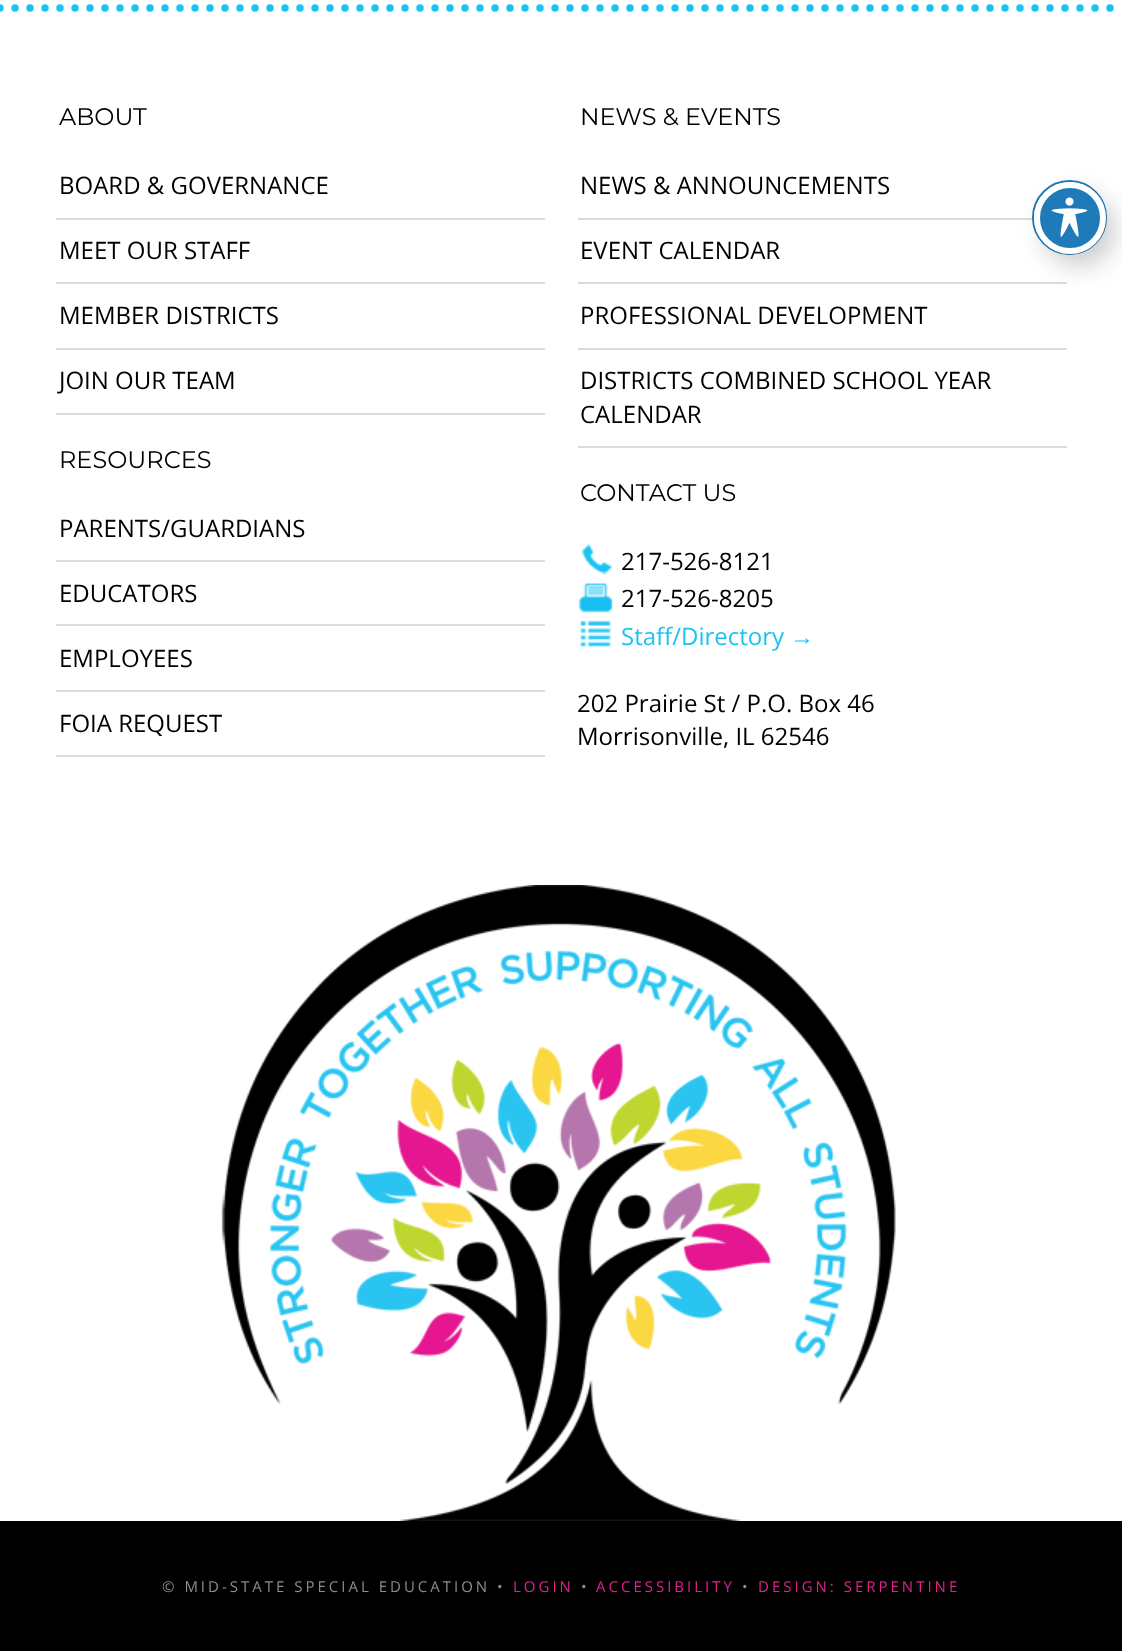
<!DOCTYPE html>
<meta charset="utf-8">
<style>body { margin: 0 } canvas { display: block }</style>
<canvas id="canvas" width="1122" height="1651"></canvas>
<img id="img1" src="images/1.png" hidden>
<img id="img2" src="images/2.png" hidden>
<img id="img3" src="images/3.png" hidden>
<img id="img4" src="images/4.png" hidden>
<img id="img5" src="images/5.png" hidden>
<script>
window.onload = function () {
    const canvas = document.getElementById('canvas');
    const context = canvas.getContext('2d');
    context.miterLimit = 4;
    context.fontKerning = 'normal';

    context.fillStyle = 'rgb(255, 255, 255)';
    context.fillRect(0, 0, 1122, 1651);
    context.beginPath();
    context.moveTo(0, 8);
    context.lineTo(1122, 8);
    context.strokeStyle = 'rgb(28, 195, 242)';
    context.lineWidth = 7.5;
    context.lineCap = 'round';
    context.setLineDash([0, 15]);
    context.stroke();
    context.drawImage(document.getElementById('img1'), 221, 885, 675, 636);
    context.fillStyle = 'rgb(219, 219, 219)';
    context.fillRect(56, 218, 489, 2);
    context.fillRect(56, 282, 489, 2);
    context.fillRect(56, 348, 489, 2);
    context.fillRect(56, 413, 489, 2);
    context.fillRect(56, 560, 489, 2);
    context.fillRect(56, 624, 489, 2);
    context.fillRect(56, 690, 489, 2);
    context.fillRect(56, 755, 489, 2);
    context.fillRect(578, 218, 457, 2);
    context.fillRect(578, 282, 489, 2);
    context.fillRect(578, 348, 489, 2);
    context.fillRect(578, 446, 489, 2);
    context.drawImage(document.getElementById('img2'), 581, 543, 32, 32);
    context.drawImage(document.getElementById('img3'), 578, 583, 35, 30);
    context.drawImage(document.getElementById('img4'), 580, 620, 31, 27);
    context.fillStyle = 'rgb(0, 0, 0)';
    context.fillRect(0, 1521, 1122, 130);
    context.beginPath();
    context.arc(1069.5, 217.5, 36.5, 0, 2 * Math.PI);
    context.strokeStyle = 'rgb(30, 122, 185)';
    context.lineWidth = 2;
    context.setLineDash([]);
    context.stroke();
    context.fillStyle = 'rgba(0, 0, 0, 0.2)';
    context.filter = 'blur(12px)';
    context.beginPath();
    context.roundRect(1043, 194, 72, 72, 36);
    context.fill();
    context.filter = 'none';
    context.fillStyle = 'rgb(30, 122, 185)';
    context.beginPath();
    context.arc(1070, 218, 33, 0, 2 * Math.PI);
    context.fill();
    context.strokeStyle = 'rgb(255, 255, 255)';
    context.lineWidth = 6;
    context.stroke();
    context.drawImage(document.getElementById('img5'), 1051, 197, 37, 40);
    context.font = '24px Montserrat';
    context.fillStyle = 'rgb(0, 0, 0)';
    context.fillText('ABOUT', 59, 125);
    context.font = '24px Open Sans';
    context.fillText('BOARD & GOVERNANCE', 59, 194);
    context.fillText('MEET OUR STAFF', 59, 259);
    context.fillText('MEMBER DISTRICTS', 59, 324);
    context.fillText('JOIN OUR TEAM', 59, 389);
    context.font = '24px Montserrat';
    context.fillText('RESOURCES', 59, 468);
    context.font = '24px Open Sans';
    context.fillText('PARENTS/GUARDIANS', 59, 537);
    context.fillText('EDUCATORS', 59, 602);
    context.fillText('EMPLOYEES', 59, 667);
    context.fillText('FOIA REQUEST', 59, 732);
    context.font = '24px Montserrat';
    context.fillText('NEWS & EVENTS', 580, 125);
    context.font = '24px Open Sans';
    context.fillText('NEWS & ANNOUNCEMENTS', 580, 194);
    context.fillText('EVENT CALENDAR', 580, 259);
    context.fillText('PROFESSIONAL DEVELOPMENT', 580, 324);
    context.fillText('DISTRICTS COMBINED SCHOOL YEAR', 580, 389);
    context.fillText('CALENDAR', 580, 423);
    context.font = '24px Montserrat';
    context.fillText('CONTACT US', 580, 501);
    context.font = '24px Open Sans';
    context.fillText('217-526-8121', 621, 570);
    context.fillText('217-526-8205', 621, 607);
    context.fillStyle = 'rgb(28, 195, 242)';
    context.fillText('Staff/Directory', 621, 645);
    context.font = '24px Liberation Serif';
    context.fillText('→', 790, 645);
    context.font = '24px Open Sans';
    context.fillStyle = 'rgb(0, 0, 0)';
    context.fillText('202 Prairie St / P.O. Box 46', 577, 712);
    context.fillText('Morrisonville, IL 62546', 577, 745);
    context.letterSpacing = '3px';
    context.font = '15px Open Sans';
    context.fillStyle = 'rgb(140, 140, 140)';
    context.fillText('© MID-STATE SPECIAL EDUCATION •', 162, 1592);
    context.fillStyle = 'rgb(228, 31, 143)';
    context.fillText('LOGIN', 513, 1592);
    context.fillStyle = 'rgb(140, 140, 140)';
    context.fillText('•', 581, 1592);
    context.fillStyle = 'rgb(228, 31, 143)';
    context.fillText('ACCESSIBILITY', 596, 1592);
    context.fillStyle = 'rgb(140, 140, 140)';
    context.fillText('•', 742, 1592);
    context.fillStyle = 'rgb(228, 31, 143)';
    context.fillText('DESIGN: SERPENTINE', 758, 1592);
};
</script>
